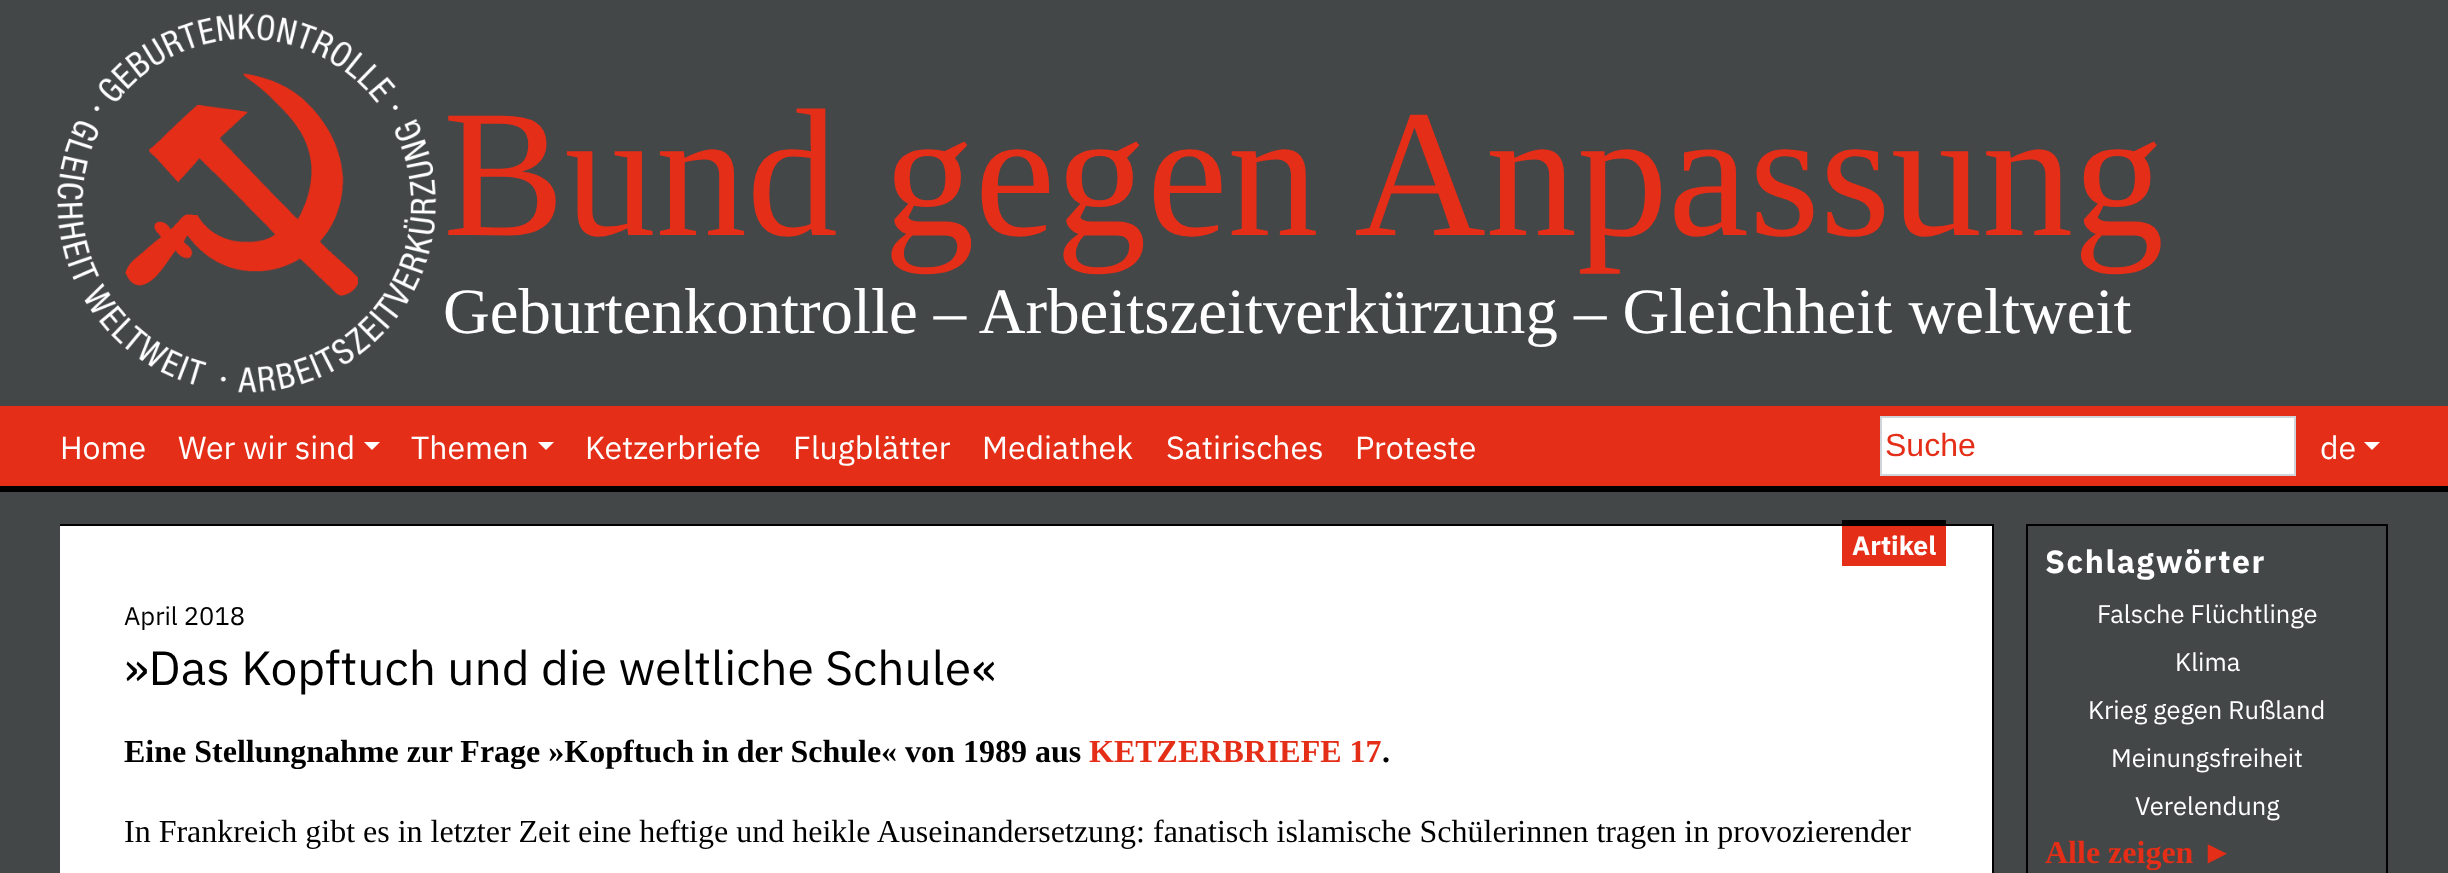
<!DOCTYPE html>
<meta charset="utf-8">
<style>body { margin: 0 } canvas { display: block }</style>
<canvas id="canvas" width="2448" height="873"></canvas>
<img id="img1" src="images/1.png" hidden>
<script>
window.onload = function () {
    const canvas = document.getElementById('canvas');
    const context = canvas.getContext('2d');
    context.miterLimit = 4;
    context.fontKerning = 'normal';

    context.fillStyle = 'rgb(67, 71, 72)';
    context.fillRect(0, 0, 2448, 873);
    context.drawImage(document.getElementById('img1'), 57, 13, 380, 380);
    context.fillStyle = 'rgb(228, 46, 24)';
    context.fillRect(0, 406, 2448, 80);
    context.fillStyle = 'rgb(0, 0, 0)';
    context.fillRect(0, 486, 2448, 6);
    context.fillStyle = 'rgb(255, 255, 255)';
    context.beginPath();
    context.moveTo(364, 442);
    context.lineTo(380, 442);
    context.lineTo(372, 450);
    context.closePath();
    context.fill();
    context.beginPath();
    context.moveTo(538, 442);
    context.lineTo(554, 442);
    context.lineTo(546, 450);
    context.closePath();
    context.fill();
    context.beginPath();
    context.rect(1881, 417, 414, 58);
    context.fill();
    context.strokeStyle = 'rgb(206, 212, 218)';
    context.lineWidth = 2;
    context.stroke();
    context.beginPath();
    context.moveTo(2364, 442);
    context.lineTo(2380, 442);
    context.lineTo(2372, 450);
    context.closePath();
    context.fill();
    context.fillRect(60, 526, 1932, 347);
    context.fillStyle = 'rgb(228, 46, 24)';
    context.fillRect(1842, 526, 104, 40);
    context.fillStyle = 'rgb(0, 0, 0)';
    context.fillRect(1842, 520, 104, 4);
    context.fillRect(60, 524, 1934, 2);
    context.fillRect(1992, 524, 2, 349);
    context.strokeStyle = 'rgb(0, 0, 0)';
    context.strokeRect(2027, 525, 360, 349);
    context.font = '182.25px Liberation Serif';
    context.fillStyle = 'rgb(228, 46, 24)';
    context.fillText('Bund gegen Anpassung', 443, 235);
    context.font = '64.75px Liberation Serif';
    context.fillStyle = 'rgb(255, 255, 255)';
    context.fillText('Geburtenkontrolle – Arbeitszeitverkürzung – Gleichheit weltweit', 443, 333);
    context.font = '32px IBM Plex Sans';
    context.fillText('Home', 60, 459);
    context.fillText('Wer wir sind', 178, 459);
    context.fillText('Themen', 411, 459);
    context.fillText('Ketzerbriefe', 585, 459);
    context.fillText('Flugblätter', 793, 459);
    context.fillText('Mediathek', 982, 459);
    context.fillText('Satirisches', 1166, 459);
    context.fillText('Proteste', 1355, 459);
    context.font = '32px Liberation Sans';
    context.fillStyle = 'rgb(228, 46, 24)';
    context.fillText('Suche', 1885, 456);
    context.font = '32px IBM Plex Sans';
    context.fillStyle = 'rgb(255, 255, 255)';
    context.fillText('de', 2320, 459);
    context.font = 'bold 26.5px IBM Plex Sans';
    context.fillText('Artikel', 1852, 555);
    context.font = '25.5px IBM Plex Sans';
    context.fillStyle = 'rgb(0, 0, 0)';
    context.fillText('April 2018', 124, 625);
    context.font = '48px IBM Plex Sans';
    context.fillText('»Das Kopftuch und die weltliche Schule«', 124, 685);
    context.font = 'bold 32px Liberation Serif';
    context.fillText('Eine Stellungnahme zur Frage »Kopftuch in der Schule« von 1989 aus', 124, 762);
    context.fillStyle = 'rgb(228, 46, 24)';
    context.fillText('KETZERBRIEFE 17', 1089, 762);
    context.fillStyle = 'rgb(0, 0, 0)';
    context.fillText('.', 1382, 762);
    context.font = '32px Liberation Serif';
    context.fillText('In Frankreich gibt es in letzter Zeit eine heftige und heikle Auseinandersetzung: fanatisch islamische Schülerinnen tragen in provozierender', 124, 842);
    context.letterSpacing = '1.6px';
    context.font = 'bold 32px IBM Plex Sans';
    context.fillStyle = 'rgb(255, 255, 255)';
    context.fillText('Schlagwörter', 2045, 573);
    context.letterSpacing = '0px';
    context.font = '25.5px IBM Plex Sans';
    context.fillText('Falsche Flüchtlinge', 2097, 623);
    context.fillText('Klima', 2175, 671);
    context.fillText('Krieg gegen Rußland', 2088, 719);
    context.fillText('Meinungsfreiheit', 2111, 767);
    context.fillText('Verelendung', 2135, 815);
    context.font = 'bold 32px Liberation Serif';
    context.fillStyle = 'rgb(228, 46, 24)';
    context.fillText('Alle zeigen ►', 2045, 863);
};
</script>
